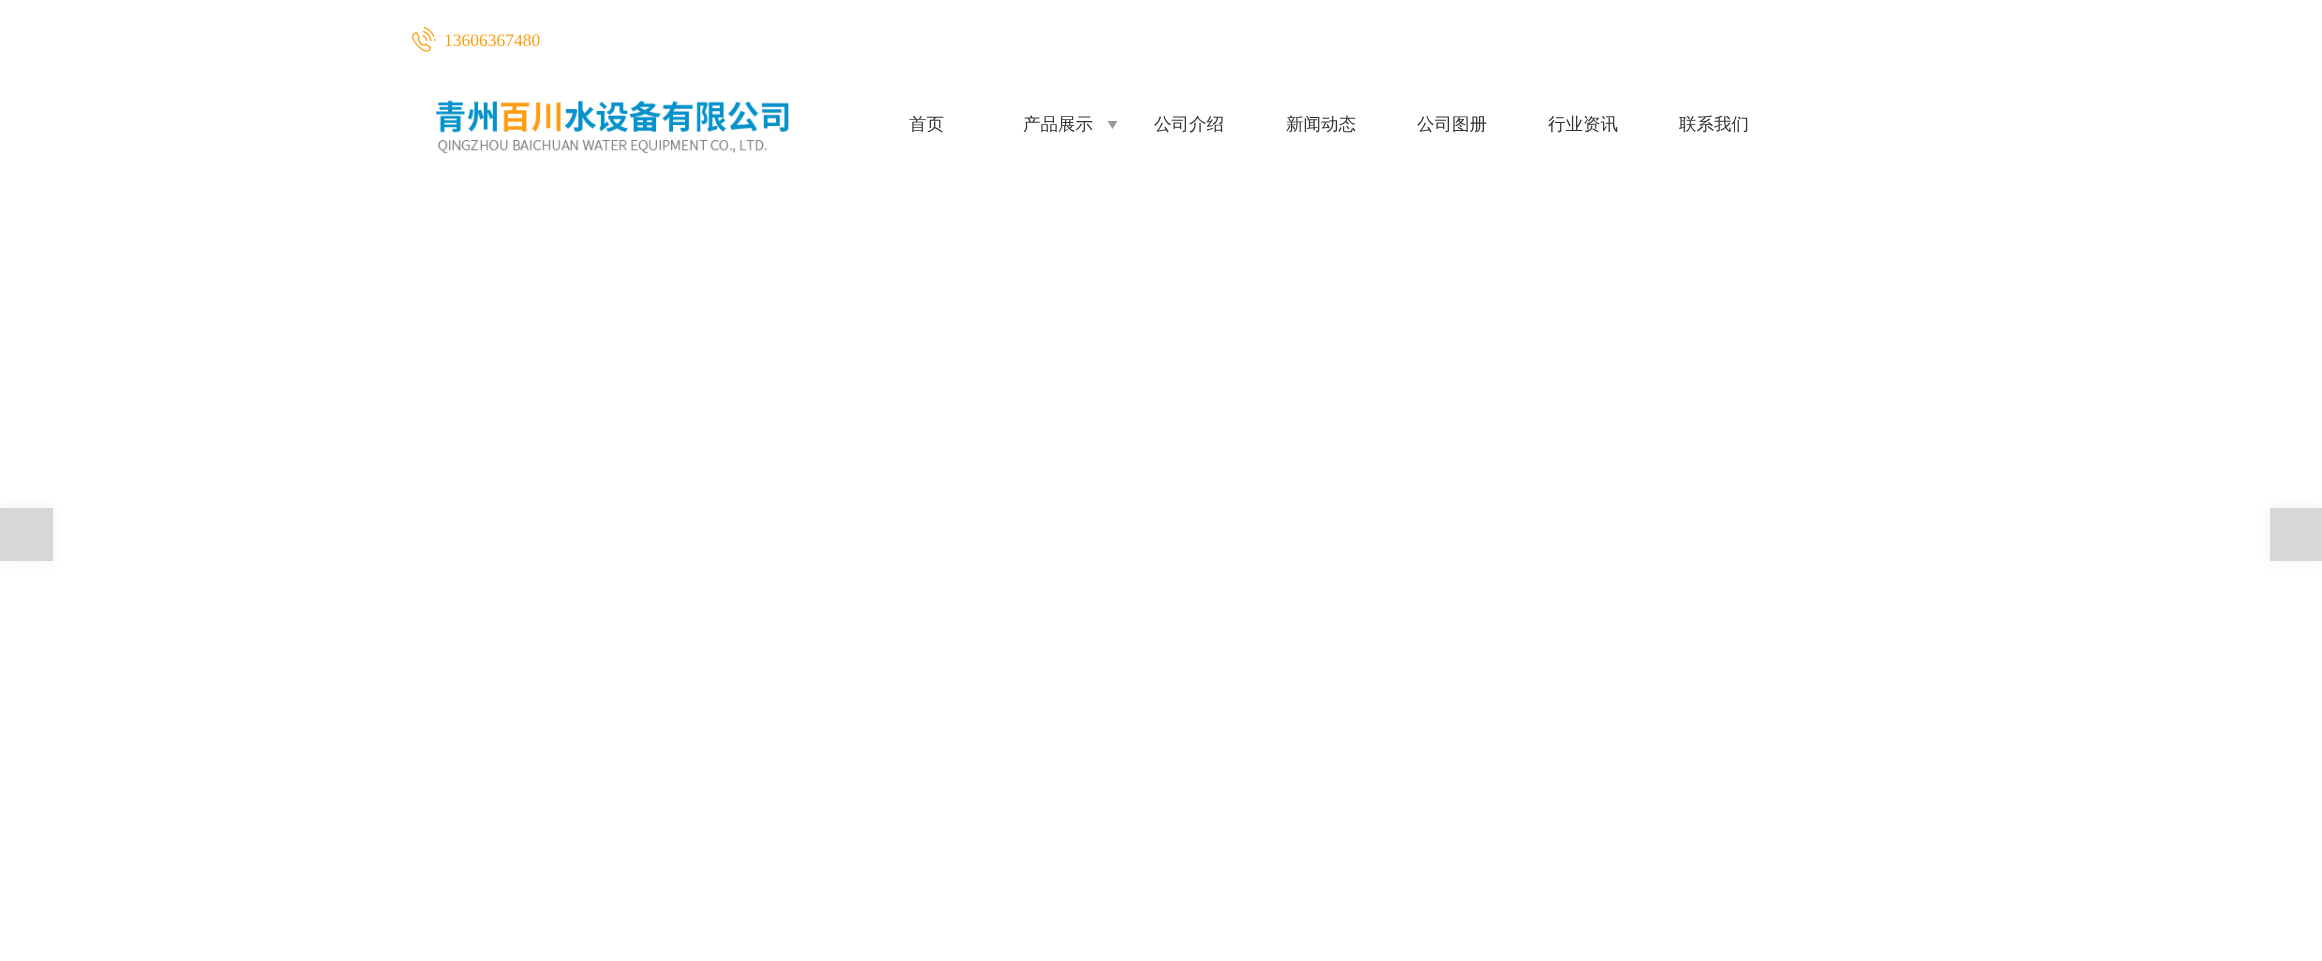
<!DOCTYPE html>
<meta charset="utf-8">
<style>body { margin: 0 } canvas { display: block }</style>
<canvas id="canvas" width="2322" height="961"></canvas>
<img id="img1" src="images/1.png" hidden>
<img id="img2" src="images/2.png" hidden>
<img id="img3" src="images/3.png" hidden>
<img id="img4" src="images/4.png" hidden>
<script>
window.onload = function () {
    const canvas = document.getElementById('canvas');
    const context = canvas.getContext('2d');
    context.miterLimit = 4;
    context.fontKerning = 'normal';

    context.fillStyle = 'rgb(255, 255, 255)';
    context.fillRect(0, 0, 2322, 961);
    context.drawImage(document.getElementById('img1'), 412, 26, 24, 26);
    context.drawImage(document.getElementById('img2'), 436, 100, 353, 54);
    context.fillStyle = 'rgb(153, 153, 153)';
    context.beginPath();
    context.moveTo(1107.5, 121);
    context.lineTo(1117.5, 121);
    context.lineTo(1112.5, 129);
    context.closePath();
    context.fill();
    context.fillStyle = 'rgba(204, 204, 204, 0.3)';
    context.filter = 'blur(6px)';
    context.beginPath();
    context.rect(0, 508, 53, 53);
    context.fill();
    context.filter = 'none';
    context.fillStyle = 'rgb(215, 215, 215)';
    context.fillRect(0, 508, 53, 53);
    context.drawImage(document.getElementById('img3'), 20, 524, 11, 21);
    context.fillStyle = 'rgba(204, 204, 204, 0.3)';
    context.filter = 'blur(6px)';
    context.beginPath();
    context.rect(2270, 508, 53, 53);
    context.fill();
    context.filter = 'none';
    context.fillStyle = 'rgb(215, 215, 215)';
    context.fillRect(2270, 508, 52, 53);
    context.drawImage(document.getElementById('img4'), 2290, 523, 11, 11);
    context.font = '17.5px Liberation Serif';
    context.fillStyle = 'rgb(255, 157, 18)';
    context.fillText('13606367480', 444, 46);
    context.font = '500 17.5px WenQuanYi Zen Hei';
    context.fillStyle = 'rgb(51, 51, 51)';
    context.fillText('首页', 909, 130);
    context.fillText('产品展示', 1023, 130);
    context.fillText('公司介绍', 1154, 130);
    context.fillText('新闻动态', 1286, 130);
    context.fillText('公司图册', 1417, 130);
    context.fillText('行业资讯', 1548, 130);
    context.fillText('联系我们', 1679, 130);
};
</script>
